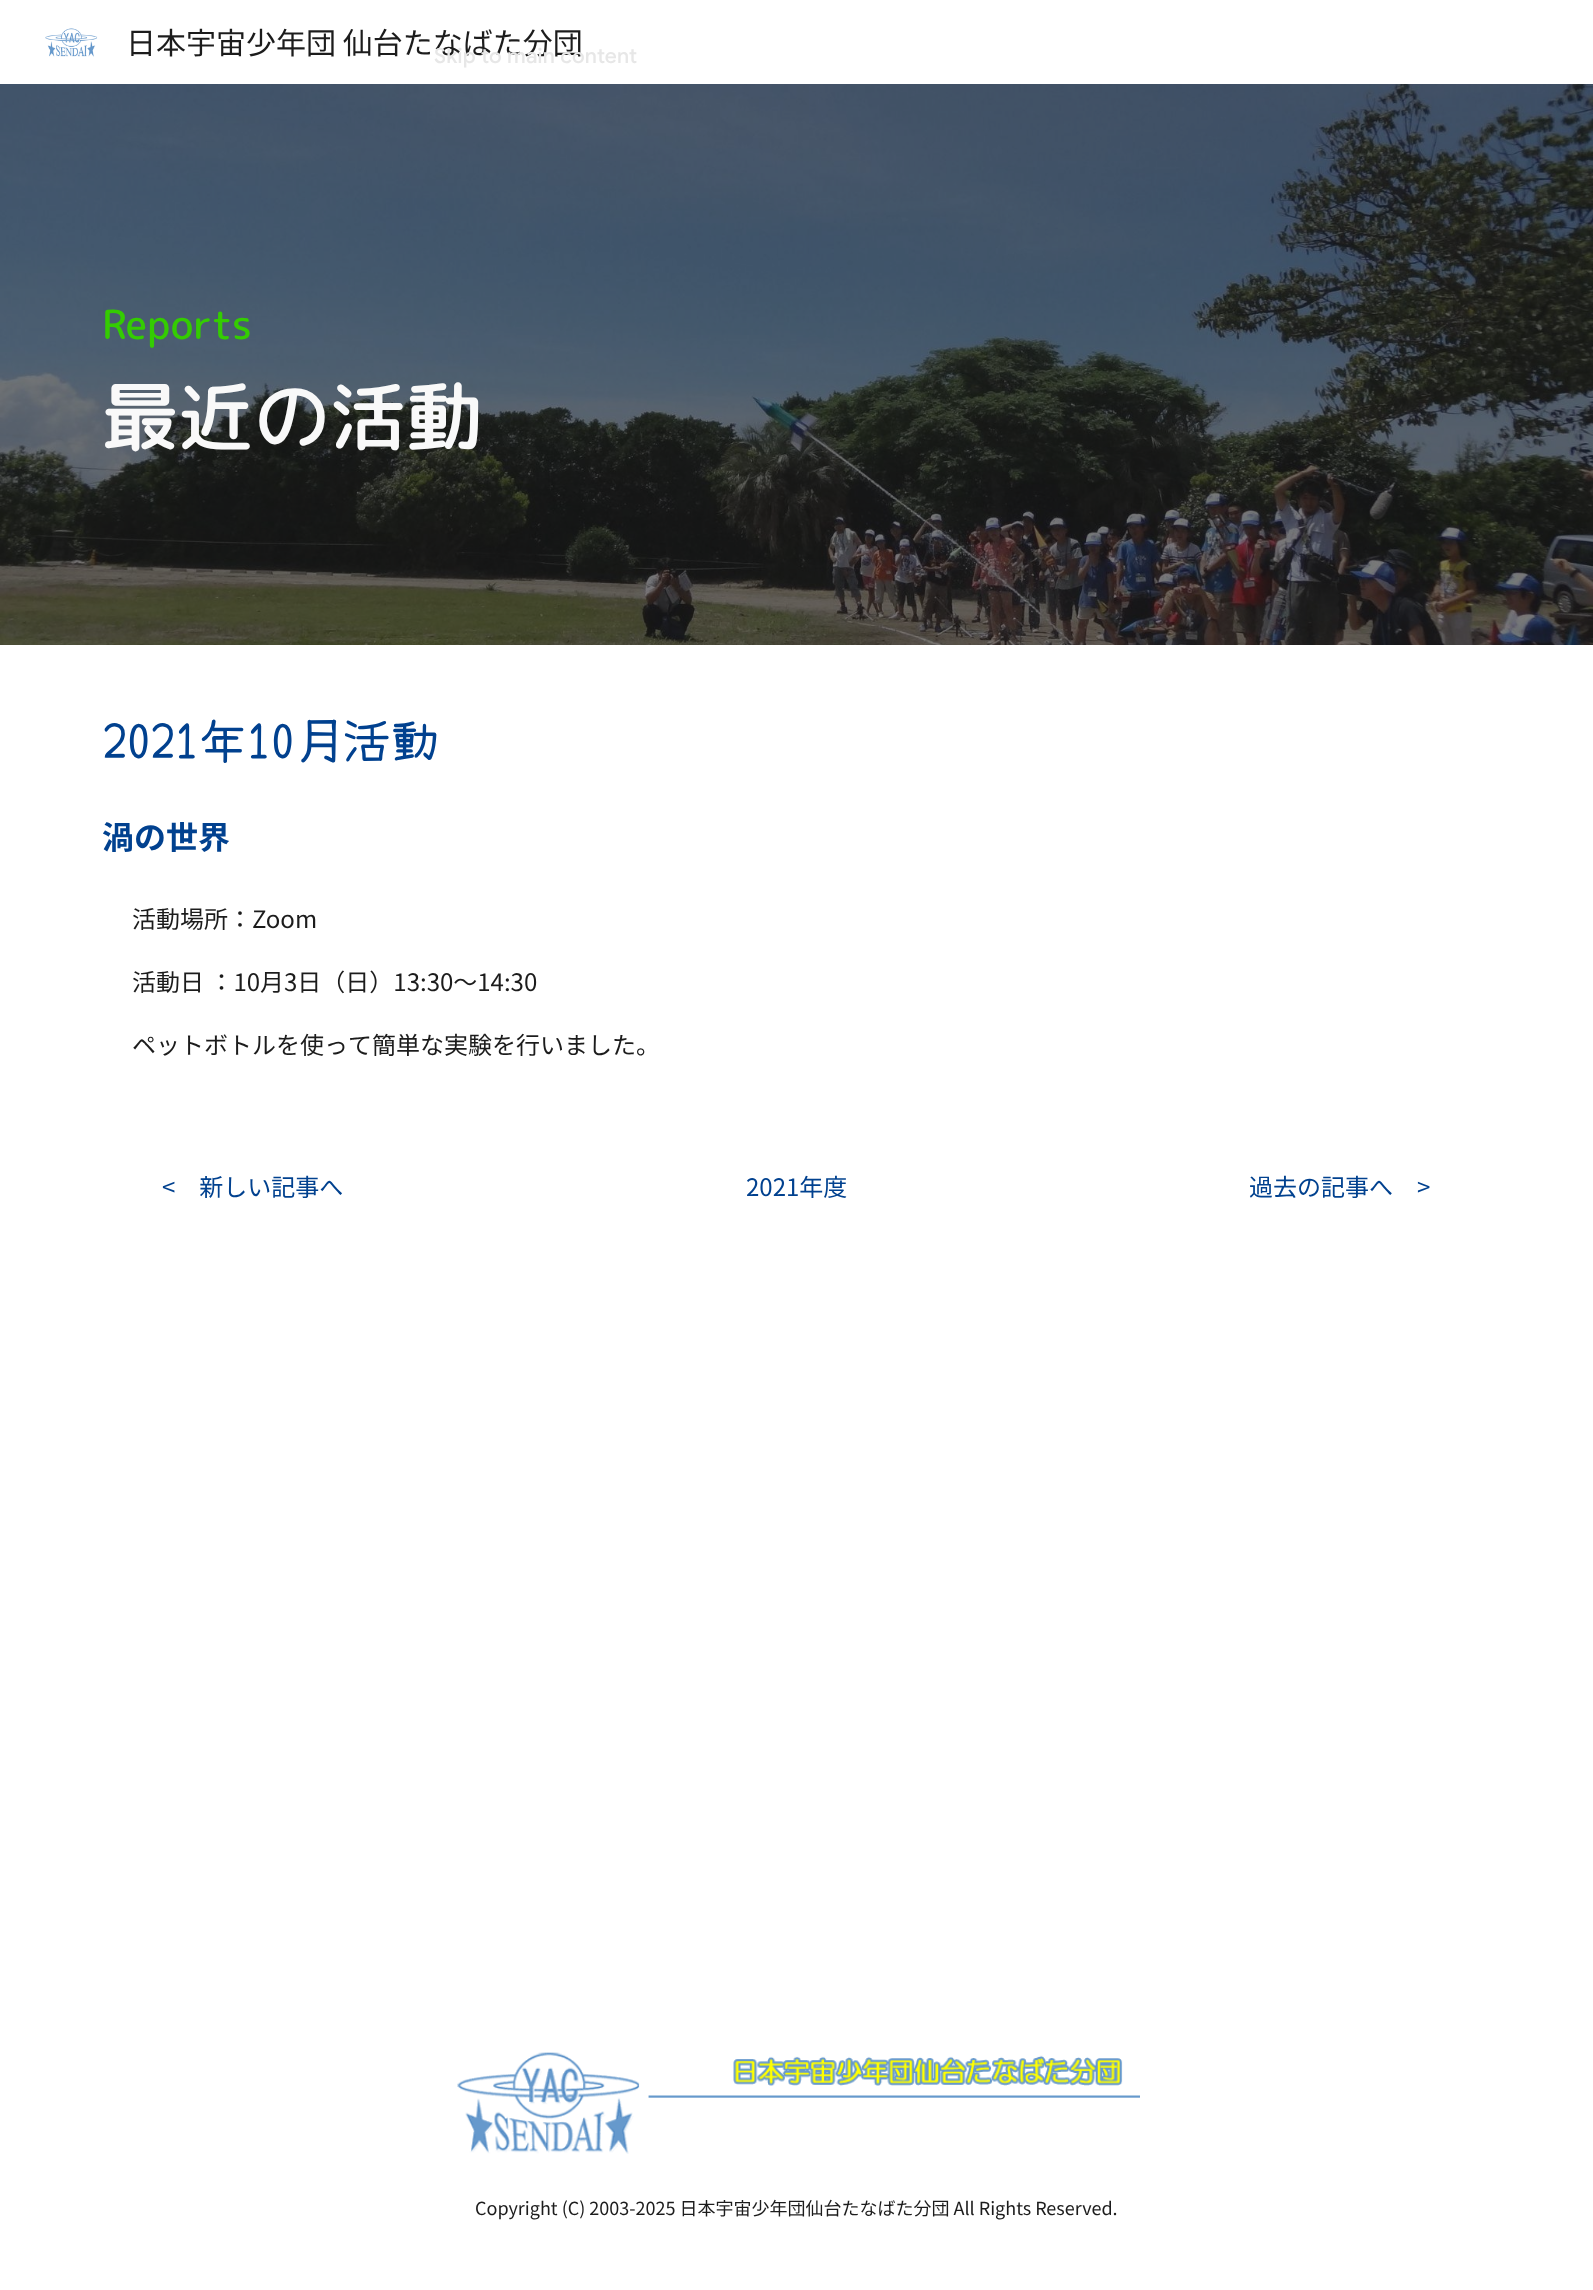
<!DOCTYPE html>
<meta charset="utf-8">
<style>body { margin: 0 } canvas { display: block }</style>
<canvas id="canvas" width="1593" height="2290"></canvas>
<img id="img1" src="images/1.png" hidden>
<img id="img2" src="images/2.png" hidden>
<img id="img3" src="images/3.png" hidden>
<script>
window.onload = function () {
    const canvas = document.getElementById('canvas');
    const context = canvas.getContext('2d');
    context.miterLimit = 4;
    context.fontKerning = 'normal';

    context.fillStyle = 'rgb(255, 255, 255)';
    context.fillRect(0, 0, 1593, 2290);
    context.drawImage(document.getElementById('img1'), 45, 28, 53, 29);
    context.drawImage(document.getElementById('img2'), 0, 84, 1593, 561);
    context.drawImage(document.getElementById('img3'), 457, 2052, 683, 102);
    context.font = '30px Noto Sans JP';
    context.fillStyle = 'rgb(28, 28, 28)';
    context.fillText('日本宇宙少年団 仙台たなばた分団', 126, 54);
    context.font = '500 40px "Rounded Mplus 1c"';
    context.fillStyle = 'rgb(52, 204, 2)';
    context.fillText('Reports', 102, 339);
    context.font = '500 76px "Rounded Mplus 1c"';
    context.fillStyle = 'rgb(249, 249, 249)';
    context.fillText('最近の活動', 102, 444);
    context.font = 'bold 48px Yomogi';
    context.fillStyle = 'rgb(1, 65, 143)';
    context.fillText('2021年10月活動', 102, 759);
    context.font = 'bold 32px Noto Sans JP';
    context.fillText('渦の世界', 102, 849);
    context.font = '24px Noto Sans JP';
    context.fillStyle = 'rgb(28, 28, 28)';
    context.fillText('活動場所：Zoom', 132, 928);
    context.fillText('活動日 ：10月3日（日）13:30〜14:30', 132, 991);
    context.fillText('ペットボトルを使って簡単な実験を行いました。', 132, 1054);
    context.fillStyle = 'rgb(1, 65, 143)';
    context.fillText('<　新しい記事へ', 162, 1196);
    context.fillText('2021年度', 746, 1196);
    context.fillText('過去の記事へ　>', 1249, 1196);
    context.font = '18px Noto Sans JP';
    context.fillStyle = 'rgb(28, 28, 28)';
    context.fillText('Copyright (C) 2003-2025 日本宇宙少年団仙台たなばた分団 All Rights Reserved.', 475, 2215);
    context.letterSpacing = '0.25px';
    context.font = '500 21px Google Sans';
    context.fillStyle = 'rgb(231, 231, 231)';
    context.fillText('Skip to main content', 434, 63);
};
</script>
